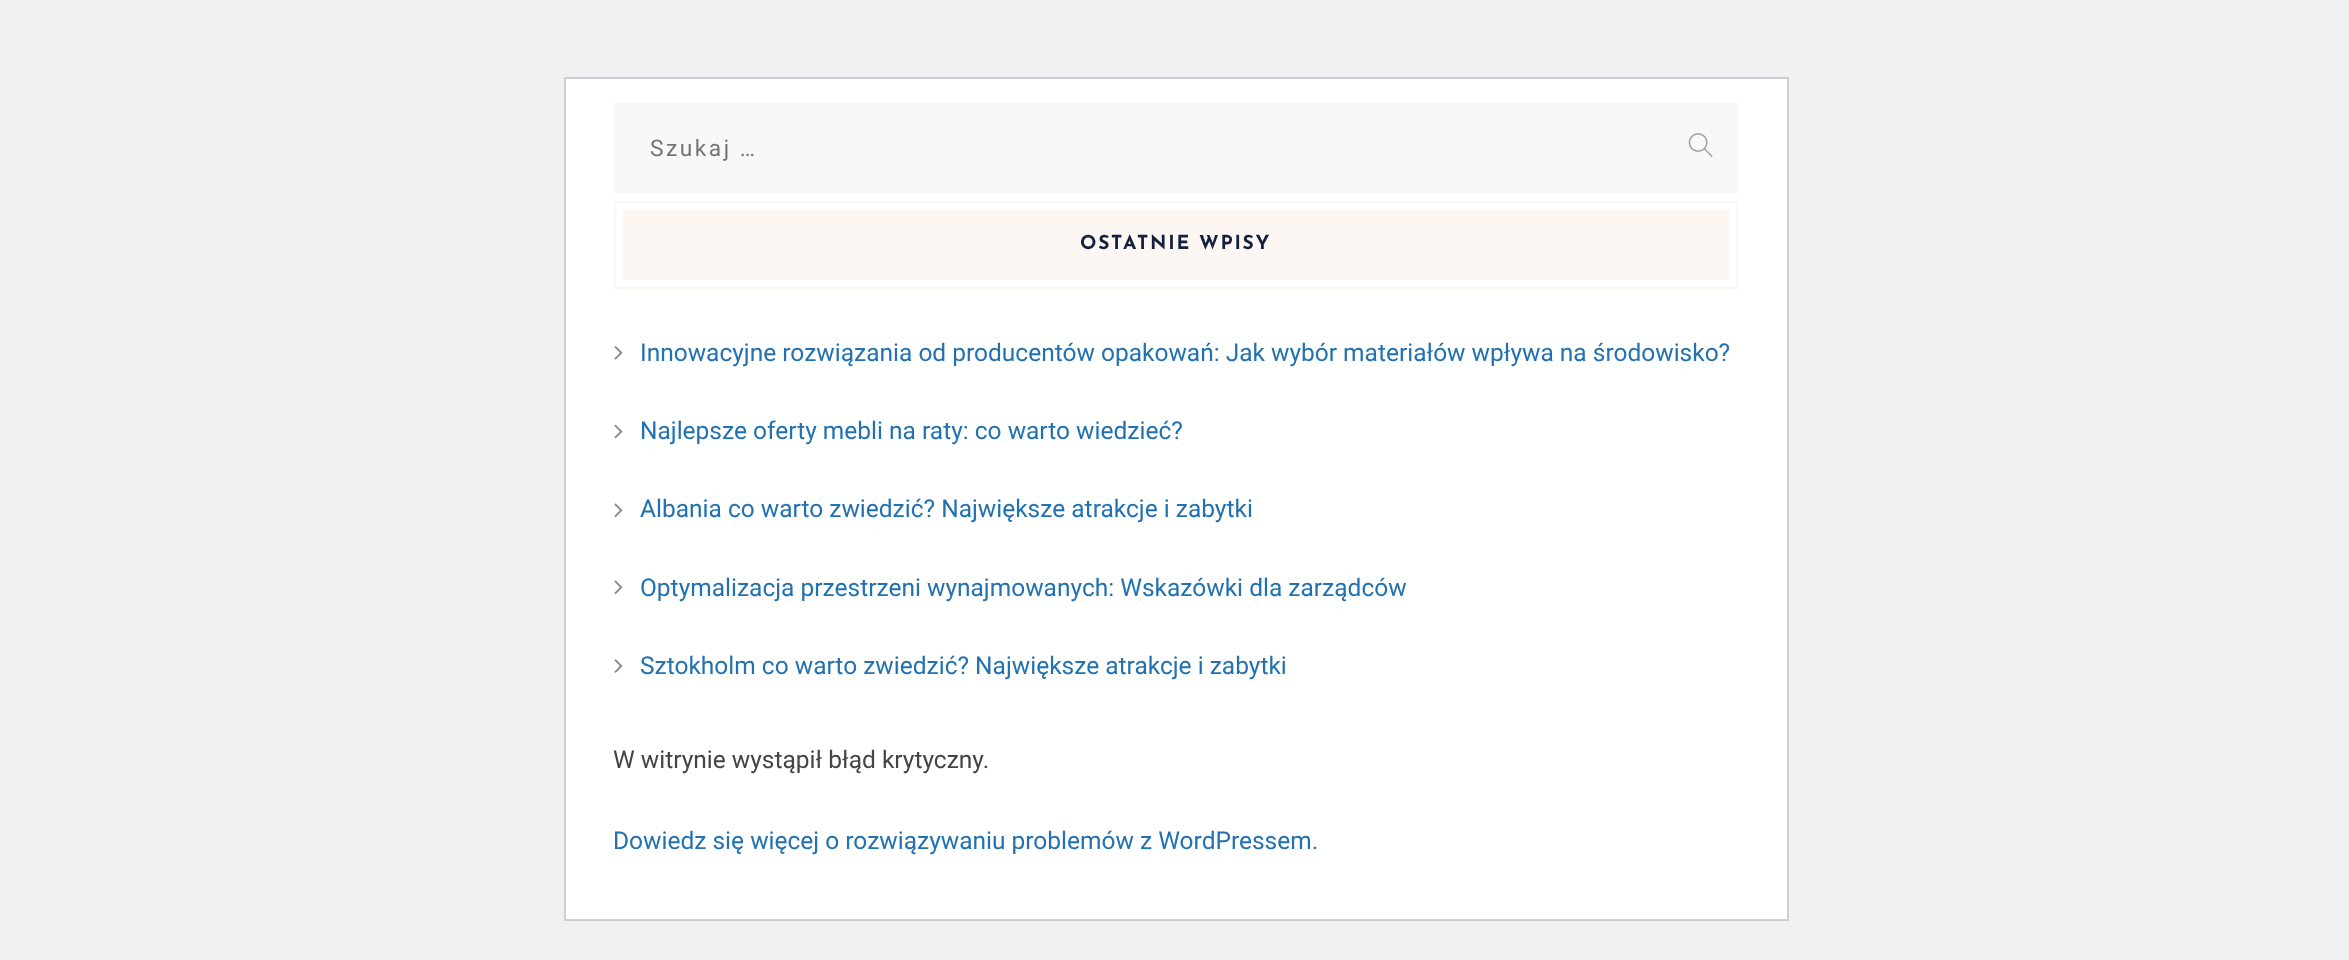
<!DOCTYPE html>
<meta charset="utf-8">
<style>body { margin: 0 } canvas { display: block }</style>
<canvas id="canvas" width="2349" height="960"></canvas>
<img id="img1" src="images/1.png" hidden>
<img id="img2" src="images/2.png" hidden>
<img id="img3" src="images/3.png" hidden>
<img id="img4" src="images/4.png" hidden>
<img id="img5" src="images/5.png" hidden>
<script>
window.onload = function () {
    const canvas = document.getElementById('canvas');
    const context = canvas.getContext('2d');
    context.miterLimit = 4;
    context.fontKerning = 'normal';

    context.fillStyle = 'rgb(241, 241, 241)';
    context.fillRect(0, 0, 2349, 960);
    context.fillStyle = 'rgb(255, 255, 255)';
    context.beginPath();
    context.rect(565, 78, 1223, 842);
    context.fill();
    context.strokeStyle = 'rgb(204, 208, 212)';
    context.lineWidth = 2;
    context.stroke();
    context.fillStyle = 'rgb(248, 248, 248)';
    context.fillRect(614, 103, 1124, 90);
    context.drawImage(document.getElementById('img1'), 1688, 133, 25, 24);
    context.strokeStyle = 'rgb(253, 247, 244)';
    context.strokeRect(615, 202, 1122, 86);
    context.fillStyle = 'rgb(253, 247, 244)';
    context.fillRect(623, 210, 1106, 70);
    context.drawImage(document.getElementById('img2'), 614, 346, 9, 14);
    context.drawImage(document.getElementById('img3'), 614, 424, 9, 15);
    context.drawImage(document.getElementById('img4'), 614, 503, 9, 15);
    context.drawImage(document.getElementById('img4'), 614, 580, 9, 15);
    context.drawImage(document.getElementById('img5'), 614, 659, 9, 14);
    context.letterSpacing = '2.5px';
    context.font = '22.75px Roboto';
    context.fillStyle = 'rgb(117, 117, 117)';
    context.fillText('Szukaj …', 650, 156);
    context.letterSpacing = '1.75px';
    context.font = 'bold 19.25px Josefin Sans';
    context.fillStyle = 'rgb(19, 33, 60)';
    context.fillText('OSTATNIE WPISY', 1080, 249);
    context.letterSpacing = '0px';
    context.font = '24.5px Roboto';
    context.fillStyle = 'rgb(34, 113, 177)';
    context.fillText('Innowacyjne rozwiązania od producentów opakowań: Jak wybór materiałów wpływa na środowisko?', 640, 361);
    context.fillText('Najlepsze oferty mebli na raty: co warto wiedzieć?', 640, 439);
    context.fillText('Albania co warto zwiedzić? Największe atrakcje i zabytki', 640, 517);
    context.fillText('Optymalizacja przestrzeni wynajmowanych: Wskazówki dla zarządców', 640, 596);
    context.fillText('Sztokholm co warto zwiedzić? Największe atrakcje i zabytki', 640, 674);
    context.fillStyle = 'rgb(68, 68, 68)';
    context.fillText('W witrynie wystąpił błąd krytyczny.', 613, 768);
    context.fillStyle = 'rgb(34, 113, 177)';
    context.fillText('Dowiedz się więcej o rozwiązywaniu problemów z WordPressem.', 613, 849);
};
</script>
